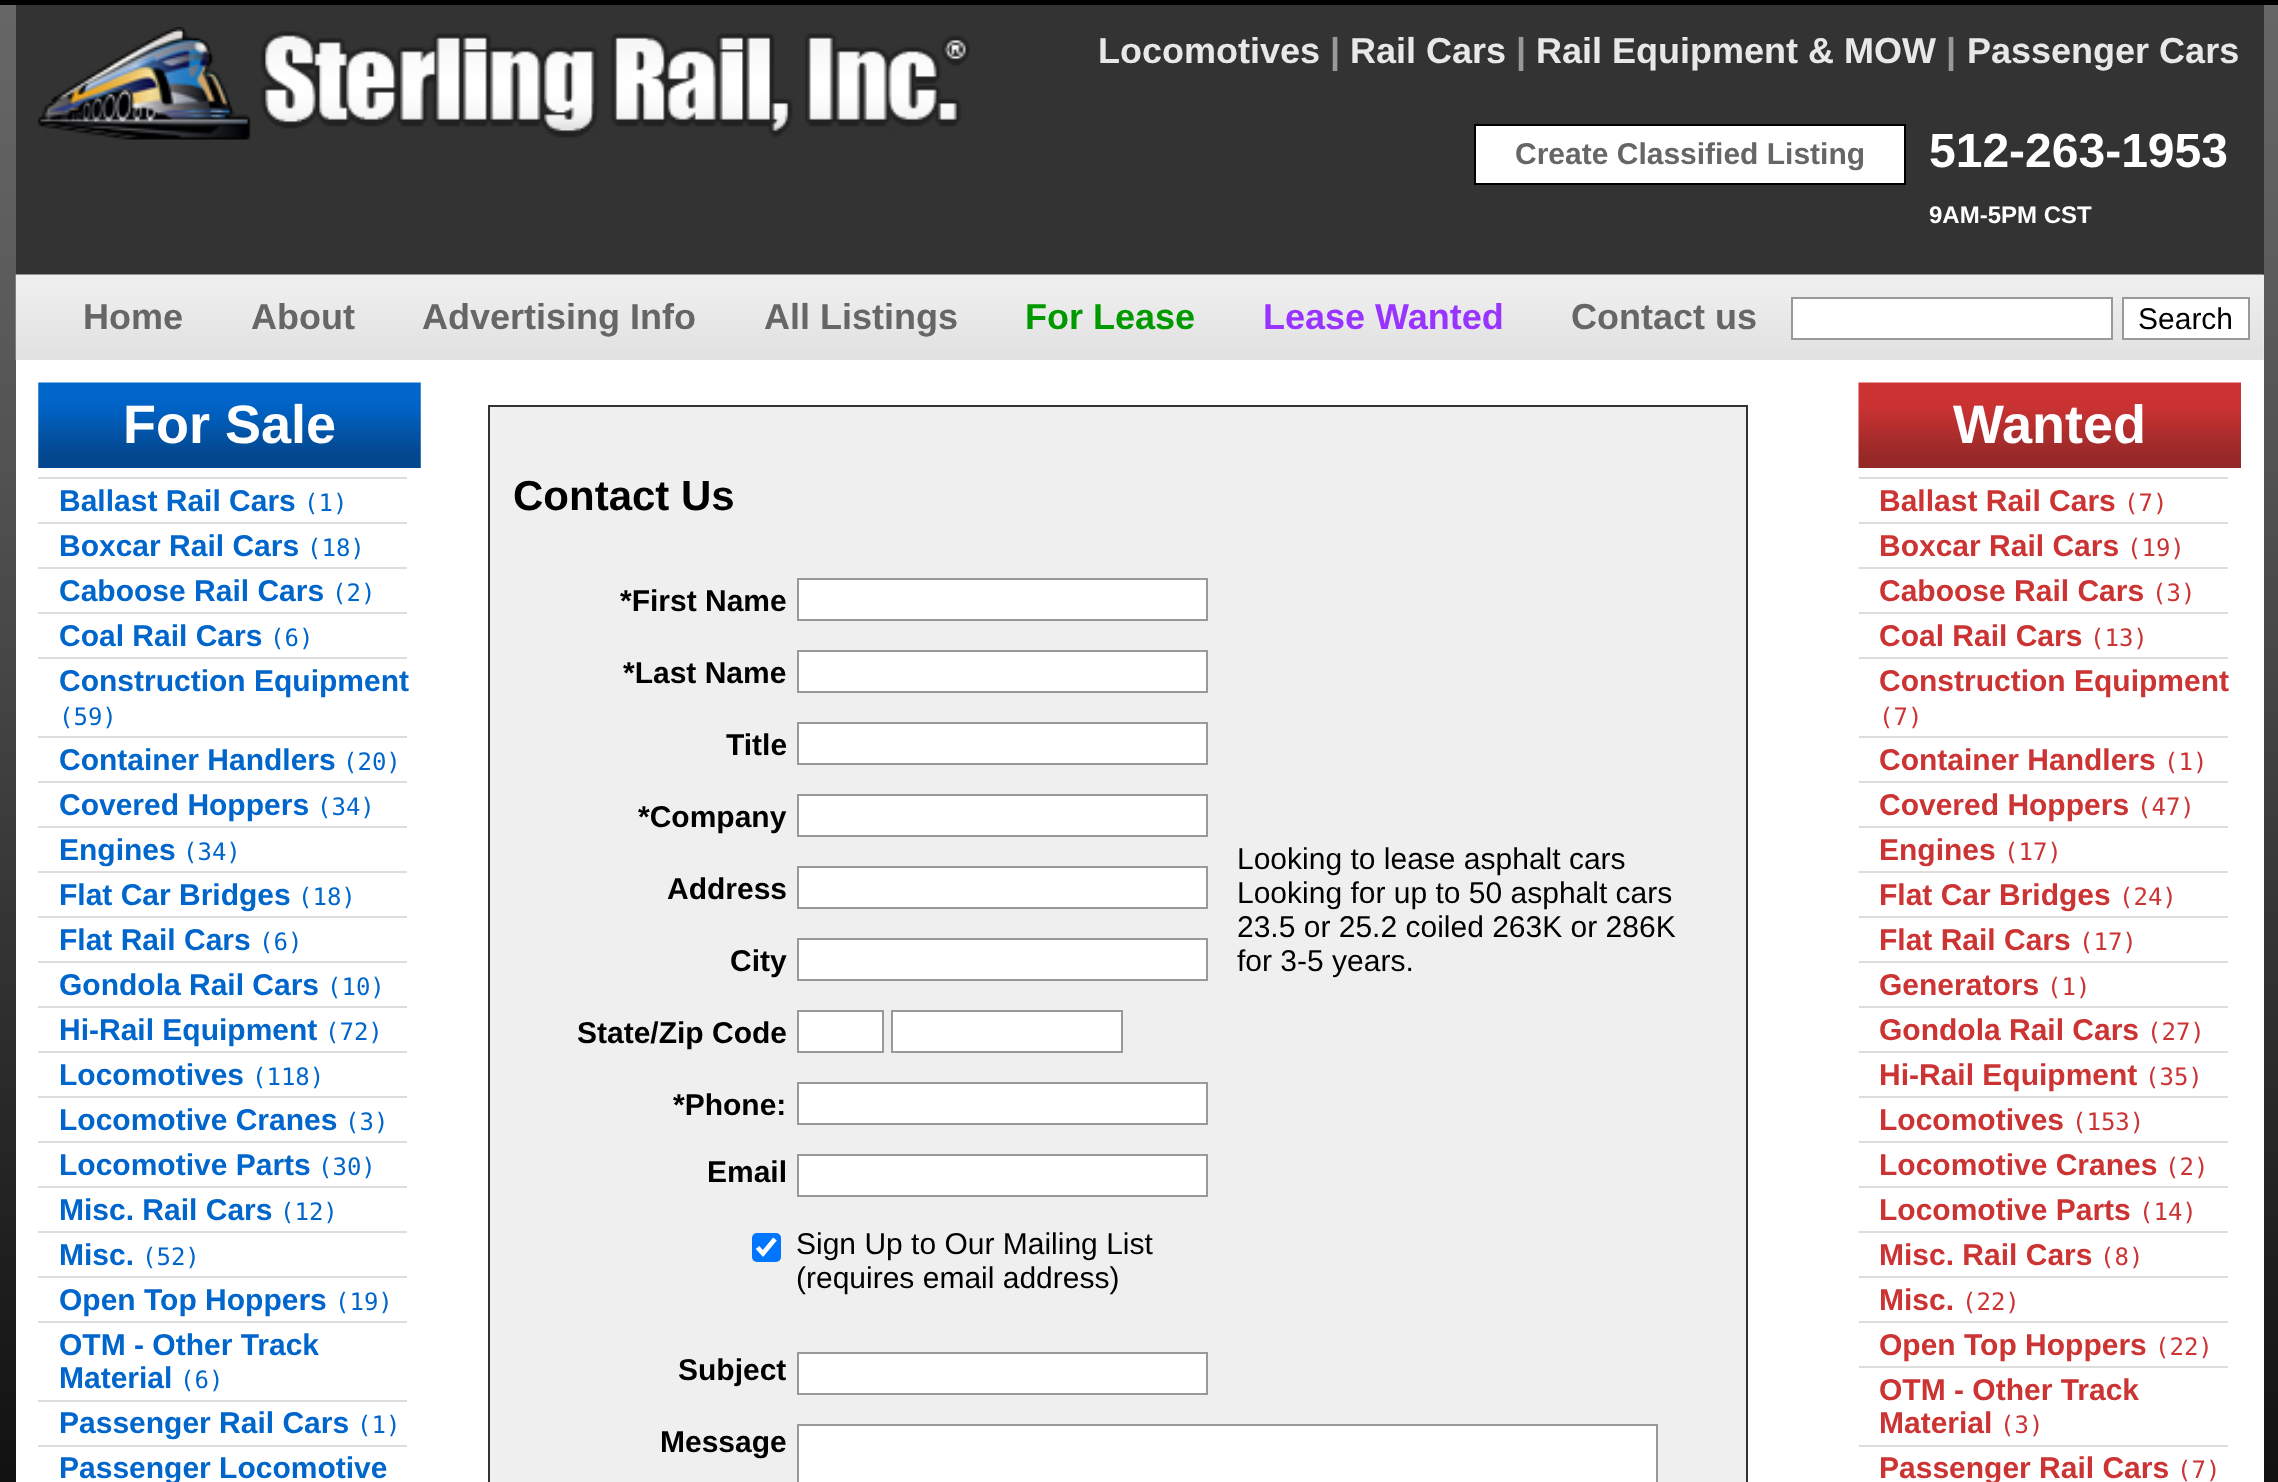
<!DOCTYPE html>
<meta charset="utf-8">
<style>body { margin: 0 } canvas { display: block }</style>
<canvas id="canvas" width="2278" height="1482"></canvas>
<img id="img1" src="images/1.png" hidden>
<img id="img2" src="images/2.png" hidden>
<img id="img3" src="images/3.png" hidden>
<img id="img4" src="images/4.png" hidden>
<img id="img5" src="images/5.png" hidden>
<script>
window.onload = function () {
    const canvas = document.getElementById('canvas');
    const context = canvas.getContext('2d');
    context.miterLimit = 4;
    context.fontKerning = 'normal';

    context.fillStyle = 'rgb(255, 255, 255)';
    context.fillRect(0, 0, 2278, 1482);
    context.drawImage(document.getElementById('img1'), 0, 5, 2278, 1477);
    context.fillStyle = 'rgb(0, 0, 0)';
    context.fillRect(0, 0, 2278, 5);
    context.fillStyle = 'rgb(51, 51, 51)';
    context.fillRect(16, 5, 2248, 270);
    context.drawImage(document.getElementById('img2'), 37, 27, 933, 113);
    context.fillStyle = 'rgb(255, 255, 255)';
    context.beginPath();
    context.rect(1475, 125, 430, 59);
    context.fill();
    context.strokeStyle = 'rgb(0, 0, 0)';
    context.lineWidth = 2;
    context.stroke();
    context.fillStyle = 'rgb(239, 239, 239)';
    context.fillRect(2263, 275, 1, 85);
    context.drawImage(document.getElementById('img3'), 15, 274, 2249, 86);
    context.fillStyle = 'rgb(255, 255, 255)';
    context.beginPath();
    context.rect(1792, 298, 320, 41);
    context.fill();
    context.strokeStyle = 'rgb(153, 153, 153)';
    context.stroke();
    context.beginPath();
    context.rect(2123, 298, 126, 41);
    context.fill();
    context.stroke();
    context.fillRect(16, 360, 2248, 1122);
    context.drawImage(document.getElementById('img4'), 38, 382, 383, 86);
    context.fillStyle = 'rgb(221, 221, 221)';
    context.fillRect(38, 477, 369, 2);
    context.fillRect(38, 522, 369, 2);
    context.fillRect(38, 567, 369, 2);
    context.fillRect(38, 612, 369, 2);
    context.fillRect(38, 657, 369, 2);
    context.fillRect(38, 736, 369, 2);
    context.fillRect(38, 781, 369, 2);
    context.fillRect(38, 826, 369, 2);
    context.fillRect(38, 871, 369, 2);
    context.fillRect(38, 916, 369, 2);
    context.fillRect(38, 961, 369, 2);
    context.fillRect(38, 1006, 369, 2);
    context.fillRect(38, 1051, 369, 2);
    context.fillRect(38, 1096, 369, 2);
    context.fillRect(38, 1141, 369, 2);
    context.fillRect(38, 1186, 369, 2);
    context.fillRect(38, 1231, 369, 2);
    context.fillRect(38, 1276, 369, 2);
    context.fillRect(38, 1321, 369, 2);
    context.fillRect(38, 1400, 369, 2);
    context.fillRect(38, 1445, 369, 2);
    context.fillStyle = 'rgb(239, 239, 239)';
    context.beginPath();
    context.rect(489, 406, 1258, 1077);
    context.fill();
    context.strokeStyle = 'rgb(51, 51, 51)';
    context.stroke();
    context.fillStyle = 'rgb(255, 255, 255)';
    context.beginPath();
    context.rect(798, 579, 409, 41);
    context.fill();
    context.strokeStyle = 'rgb(153, 153, 153)';
    context.stroke();
    context.beginPath();
    context.rect(798, 651, 409, 41);
    context.fill();
    context.stroke();
    context.beginPath();
    context.rect(798, 723, 409, 41);
    context.fill();
    context.stroke();
    context.beginPath();
    context.rect(798, 795, 409, 41);
    context.fill();
    context.stroke();
    context.beginPath();
    context.rect(798, 867, 409, 41);
    context.fill();
    context.stroke();
    context.beginPath();
    context.rect(798, 939, 409, 41);
    context.fill();
    context.stroke();
    context.beginPath();
    context.rect(798, 1011, 85, 41);
    context.fill();
    context.stroke();
    context.beginPath();
    context.rect(892, 1011, 230, 41);
    context.fill();
    context.stroke();
    context.beginPath();
    context.rect(798, 1083, 409, 41);
    context.fill();
    context.stroke();
    context.beginPath();
    context.rect(798, 1155, 409, 41);
    context.fill();
    context.stroke();
    context.fillStyle = 'rgb(0, 117, 255)';
    context.beginPath();
    context.roundRect(752, 1233, 29, 29, 5);
    context.fill();
    context.beginPath();
    context.moveTo(757.5, 1247.5);
    context.lineTo(763, 1253.5);
    context.lineTo(775, 1239);
    context.strokeStyle = 'rgb(255, 255, 255)';
    context.lineWidth = 4.7;
    context.stroke();
    context.fillStyle = 'rgb(255, 255, 255)';
    context.beginPath();
    context.rect(798, 1353, 409, 41);
    context.fill();
    context.strokeStyle = 'rgb(153, 153, 153)';
    context.lineWidth = 2;
    context.stroke();
    context.beginPath();
    context.rect(798, 1425, 859, 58);
    context.fill();
    context.stroke();
    context.drawImage(document.getElementById('img5'), 1858, 382, 383, 86);
    context.fillStyle = 'rgb(221, 221, 221)';
    context.fillRect(1859, 477, 369, 2);
    context.fillRect(1859, 522, 369, 2);
    context.fillRect(1859, 567, 369, 2);
    context.fillRect(1859, 612, 369, 2);
    context.fillRect(1859, 657, 369, 2);
    context.fillRect(1859, 736, 369, 2);
    context.fillRect(1859, 781, 369, 2);
    context.fillRect(1859, 826, 369, 2);
    context.fillRect(1859, 871, 369, 2);
    context.fillRect(1859, 916, 369, 2);
    context.fillRect(1859, 961, 369, 2);
    context.fillRect(1859, 1006, 369, 2);
    context.fillRect(1859, 1051, 369, 2);
    context.fillRect(1859, 1096, 369, 2);
    context.fillRect(1859, 1141, 369, 2);
    context.fillRect(1859, 1186, 369, 2);
    context.fillRect(1859, 1231, 369, 2);
    context.fillRect(1859, 1276, 369, 2);
    context.fillRect(1859, 1321, 369, 2);
    context.fillRect(1859, 1366, 369, 2);
    context.fillRect(1859, 1445, 369, 2);
    context.font = 'bold 36px Liberation Sans';
    context.fillStyle = 'rgb(232, 232, 232)';
    context.fillText('Locomotives', 1098, 63);
    context.fillStyle = 'rgb(153, 153, 153)';
    context.fillText('|', 1330, 63);
    context.fillStyle = 'rgb(232, 232, 232)';
    context.fillText('Rail Cars', 1350, 63);
    context.fillStyle = 'rgb(153, 153, 153)';
    context.fillText('|', 1516, 63);
    context.fillStyle = 'rgb(232, 232, 232)';
    context.fillText('Rail Equipment & MOW', 1536, 63);
    context.fillStyle = 'rgb(153, 153, 153)';
    context.fillText('|', 1946, 63);
    context.fillStyle = 'rgb(232, 232, 232)';
    context.fillText('Passenger Cars', 1967, 63);
    context.font = 'bold 30px Liberation Sans';
    context.fillStyle = 'rgb(102, 102, 102)';
    context.fillText('Create Classified Listing', 1515, 164);
    context.font = 'bold 48px Liberation Sans';
    context.fillStyle = 'rgb(255, 255, 255)';
    context.fillText('512-263-1953', 1929, 167);
    context.font = 'bold 24px Liberation Sans';
    context.fillText('9AM-5PM CST', 1929, 223);
    context.font = 'bold 36px Liberation Sans';
    context.fillStyle = 'rgb(102, 102, 102)';
    context.fillText('Home', 83, 329);
    context.fillText('About', 251, 329);
    context.fillText('Advertising Info', 422, 329);
    context.fillText('All Listings', 764, 329);
    context.fillStyle = 'rgb(0, 153, 0)';
    context.fillText('For Lease', 1025, 329);
    context.fillStyle = 'rgb(153, 51, 255)';
    context.fillText('Lease Wanted', 1263, 329);
    context.fillStyle = 'rgb(102, 102, 102)';
    context.fillText('Contact us', 1571, 329);
    context.font = '30px Liberation Sans';
    context.fillStyle = 'rgb(0, 0, 0)';
    context.fillText('Search', 2138, 329);
    context.font = 'bold 54px Liberation Sans';
    context.fillStyle = 'rgb(255, 255, 255)';
    context.fillText('For Sale', 123, 443);
    context.font = 'bold 30px Liberation Sans';
    context.fillStyle = 'rgb(0, 102, 204)';
    context.fillText('Ballast Rail Cars', 59, 511);
    context.font = '24px DejaVu Sans Mono';
    context.fillText('(1)', 304, 511);
    context.font = 'bold 30px Liberation Sans';
    context.fillText('Boxcar Rail Cars', 59, 556);
    context.font = '24px DejaVu Sans Mono';
    context.fillText('(18)', 307, 556);
    context.font = 'bold 30px Liberation Sans';
    context.fillText('Caboose Rail Cars', 59, 601);
    context.font = '24px DejaVu Sans Mono';
    context.fillText('(2)', 332, 601);
    context.font = 'bold 30px Liberation Sans';
    context.fillText('Coal Rail Cars', 59, 646);
    context.font = '24px DejaVu Sans Mono';
    context.fillText('(6)', 270, 646);
    context.font = 'bold 30px Liberation Sans';
    context.fillText('Construction Equipment', 59, 691);
    context.font = '24px DejaVu Sans Mono';
    context.fillText('(59)', 59, 725);
    context.font = 'bold 30px Liberation Sans';
    context.fillText('Container Handlers', 59, 770);
    context.font = '24px DejaVu Sans Mono';
    context.fillText('(20)', 343, 770);
    context.font = 'bold 30px Liberation Sans';
    context.fillText('Covered Hoppers', 59, 815);
    context.font = '24px DejaVu Sans Mono';
    context.fillText('(34)', 317, 815);
    context.font = 'bold 30px Liberation Sans';
    context.fillText('Engines', 59, 860);
    context.font = '24px DejaVu Sans Mono';
    context.fillText('(34)', 183, 860);
    context.font = 'bold 30px Liberation Sans';
    context.fillText('Flat Car Bridges', 59, 905);
    context.font = '24px DejaVu Sans Mono';
    context.fillText('(18)', 298, 905);
    context.font = 'bold 30px Liberation Sans';
    context.fillText('Flat Rail Cars', 59, 950);
    context.font = '24px DejaVu Sans Mono';
    context.fillText('(6)', 259, 950);
    context.font = 'bold 30px Liberation Sans';
    context.fillText('Gondola Rail Cars', 59, 995);
    context.font = '24px DejaVu Sans Mono';
    context.fillText('(10)', 327, 995);
    context.font = 'bold 30px Liberation Sans';
    context.fillText('Hi-Rail Equipment', 59, 1040);
    context.font = '24px DejaVu Sans Mono';
    context.fillText('(72)', 325, 1040);
    context.font = 'bold 30px Liberation Sans';
    context.fillText('Locomotives', 59, 1085);
    context.font = '24px DejaVu Sans Mono';
    context.fillText('(118)', 252, 1085);
    context.font = 'bold 30px Liberation Sans';
    context.fillText('Locomotive Cranes', 59, 1130);
    context.font = '24px DejaVu Sans Mono';
    context.fillText('(3)', 345, 1130);
    context.font = 'bold 30px Liberation Sans';
    context.fillText('Locomotive Parts', 59, 1175);
    context.font = '24px DejaVu Sans Mono';
    context.fillText('(30)', 318, 1175);
    context.font = 'bold 30px Liberation Sans';
    context.fillText('Misc. Rail Cars', 59, 1220);
    context.font = '24px DejaVu Sans Mono';
    context.fillText('(12)', 280, 1220);
    context.font = 'bold 30px Liberation Sans';
    context.fillText('Misc.', 59, 1265);
    context.font = '24px DejaVu Sans Mono';
    context.fillText('(52)', 142, 1265);
    context.font = 'bold 30px Liberation Sans';
    context.fillText('Open Top Hoppers', 59, 1310);
    context.font = '24px DejaVu Sans Mono';
    context.fillText('(19)', 335, 1310);
    context.font = 'bold 30px Liberation Sans';
    context.fillText('OTM - Other Track', 59, 1355);
    context.fillText('Material', 59, 1388);
    context.font = '24px DejaVu Sans Mono';
    context.fillText('(6)', 180, 1388);
    context.font = 'bold 30px Liberation Sans';
    context.fillText('Passenger Rail Cars', 59, 1433);
    context.font = '24px DejaVu Sans Mono';
    context.fillText('(1)', 357, 1433);
    context.font = 'bold 30px Liberation Sans';
    context.fillText('Passenger Locomotive', 59, 1478);
    context.font = 'bold 42px Liberation Sans';
    context.fillStyle = 'rgb(0, 0, 0)';
    context.fillText('Contact Us', 513, 510);
    context.font = 'bold 30px Liberation Sans';
    context.fillText('*First Name', 620, 611);
    context.font = '30px Liberation Sans';
    context.fillText('Looking to lease asphalt cars', 1237, 869);
    context.fillText('Looking for up to 50 asphalt cars', 1237, 903);
    context.fillText('23.5 or 25.2 coiled 263K or 286K', 1237, 937);
    context.fillText('for 3-5 years.', 1237, 971);
    context.font = 'bold 30px Liberation Sans';
    context.fillText('*Last Name', 623, 683);
    context.fillText('Title', 726, 755);
    context.fillText('*Company', 638, 827);
    context.fillText('Address', 667, 899);
    context.fillText('City', 730, 971);
    context.fillText('State/Zip Code', 577, 1043);
    context.fillText('*Phone:', 673, 1115);
    context.fillText('Email', 707, 1182);
    context.font = '30px Liberation Sans';
    context.fillText('Sign Up to Our Mailing List', 796, 1254);
    context.fillText('(requires email address)', 796, 1288);
    context.font = 'bold 30px Liberation Sans';
    context.fillText('Subject', 678, 1380);
    context.fillText('Message', 660, 1452);
    context.font = 'bold 54px Liberation Sans';
    context.fillStyle = 'rgb(255, 255, 255)';
    context.fillText('Wanted', 1953, 443);
    context.font = 'bold 30px Liberation Sans';
    context.fillStyle = 'rgb(204, 51, 51)';
    context.fillText('Ballast Rail Cars', 1879, 511);
    context.font = '24px DejaVu Sans Mono';
    context.fillText('(7)', 2124, 511);
    context.font = 'bold 30px Liberation Sans';
    context.fillText('Boxcar Rail Cars', 1879, 556);
    context.font = '24px DejaVu Sans Mono';
    context.fillText('(19)', 2127, 556);
    context.font = 'bold 30px Liberation Sans';
    context.fillText('Caboose Rail Cars', 1879, 601);
    context.font = '24px DejaVu Sans Mono';
    context.fillText('(3)', 2152, 601);
    context.font = 'bold 30px Liberation Sans';
    context.fillText('Coal Rail Cars', 1879, 646);
    context.font = '24px DejaVu Sans Mono';
    context.fillText('(13)', 2090, 646);
    context.font = 'bold 30px Liberation Sans';
    context.fillText('Construction Equipment', 1879, 691);
    context.font = '24px DejaVu Sans Mono';
    context.fillText('(7)', 1879, 725);
    context.font = 'bold 30px Liberation Sans';
    context.fillText('Container Handlers', 1879, 770);
    context.font = '24px DejaVu Sans Mono';
    context.fillText('(1)', 2164, 770);
    context.font = 'bold 30px Liberation Sans';
    context.fillText('Covered Hoppers', 1879, 815);
    context.font = '24px DejaVu Sans Mono';
    context.fillText('(47)', 2137, 815);
    context.font = 'bold 30px Liberation Sans';
    context.fillText('Engines', 1879, 860);
    context.font = '24px DejaVu Sans Mono';
    context.fillText('(17)', 2004, 860);
    context.font = 'bold 30px Liberation Sans';
    context.fillText('Flat Car Bridges', 1879, 905);
    context.font = '24px DejaVu Sans Mono';
    context.fillText('(24)', 2119, 905);
    context.font = 'bold 30px Liberation Sans';
    context.fillText('Flat Rail Cars', 1879, 950);
    context.font = '24px DejaVu Sans Mono';
    context.fillText('(17)', 2079, 950);
    context.font = 'bold 30px Liberation Sans';
    context.fillText('Generators', 1879, 995);
    context.font = '24px DejaVu Sans Mono';
    context.fillText('(1)', 2047, 995);
    context.font = 'bold 30px Liberation Sans';
    context.fillText('Gondola Rail Cars', 1879, 1040);
    context.font = '24px DejaVu Sans Mono';
    context.fillText('(27)', 2147, 1040);
    context.font = 'bold 30px Liberation Sans';
    context.fillText('Hi-Rail Equipment', 1879, 1085);
    context.font = '24px DejaVu Sans Mono';
    context.fillText('(35)', 2145, 1085);
    context.font = 'bold 30px Liberation Sans';
    context.fillText('Locomotives', 1879, 1130);
    context.font = '24px DejaVu Sans Mono';
    context.fillText('(153)', 2072, 1130);
    context.font = 'bold 30px Liberation Sans';
    context.fillText('Locomotive Cranes', 1879, 1175);
    context.font = '24px DejaVu Sans Mono';
    context.fillText('(2)', 2165, 1175);
    context.font = 'bold 30px Liberation Sans';
    context.fillText('Locomotive Parts', 1879, 1220);
    context.font = '24px DejaVu Sans Mono';
    context.fillText('(14)', 2139, 1220);
    context.font = 'bold 30px Liberation Sans';
    context.fillText('Misc. Rail Cars', 1879, 1265);
    context.font = '24px DejaVu Sans Mono';
    context.fillText('(8)', 2100, 1265);
    context.font = 'bold 30px Liberation Sans';
    context.fillText('Misc.', 1879, 1310);
    context.font = '24px DejaVu Sans Mono';
    context.fillText('(22)', 1962, 1310);
    context.font = 'bold 30px Liberation Sans';
    context.fillText('Open Top Hoppers', 1879, 1355);
    context.font = '24px DejaVu Sans Mono';
    context.fillText('(22)', 2155, 1355);
    context.font = 'bold 30px Liberation Sans';
    context.fillText('OTM - Other Track', 1879, 1400);
    context.fillText('Material', 1879, 1433);
    context.font = '24px DejaVu Sans Mono';
    context.fillText('(3)', 2000, 1433);
    context.font = 'bold 30px Liberation Sans';
    context.fillText('Passenger Rail Cars', 1879, 1478);
    context.font = '24px DejaVu Sans Mono';
    context.fillText('(7)', 2177, 1478);
};
</script>
